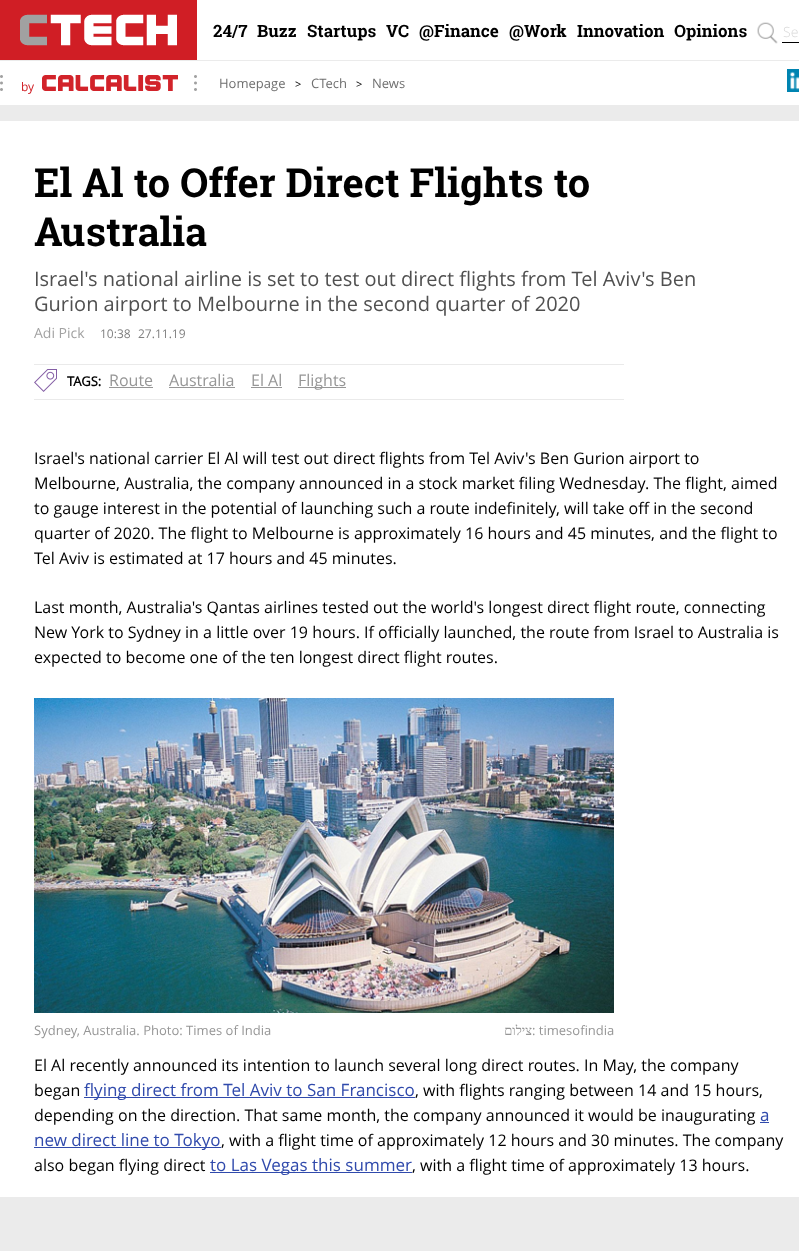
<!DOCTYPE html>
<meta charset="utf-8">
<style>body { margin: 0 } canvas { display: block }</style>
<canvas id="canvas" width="799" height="1251"></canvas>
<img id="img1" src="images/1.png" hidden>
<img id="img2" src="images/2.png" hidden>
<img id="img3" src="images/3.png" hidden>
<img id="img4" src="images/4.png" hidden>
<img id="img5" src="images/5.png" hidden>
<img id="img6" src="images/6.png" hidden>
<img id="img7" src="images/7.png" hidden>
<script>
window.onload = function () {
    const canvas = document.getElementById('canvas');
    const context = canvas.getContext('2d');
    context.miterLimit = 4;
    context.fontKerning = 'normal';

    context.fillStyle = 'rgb(235, 235, 235)';
    context.fillRect(0, 0, 799, 1251);
    context.drawImage(document.getElementById('img1'), 0, 0, 197, 60);
    context.fillStyle = 'rgb(255, 255, 255)';
    context.fillRect(197, 0, 602, 60);
    context.drawImage(document.getElementById('img2'), 757, 22, 21, 22);
    context.fillStyle = 'rgb(0, 0, 0)';
    context.fillRect(782, 42, 17, 1);
    context.fillStyle = 'rgb(255, 255, 255)';
    context.fillRect(0, 61, 799, 44);
    context.drawImage(document.getElementById('img3'), 0, 75, 3, 16);
    context.drawImage(document.getElementById('img4'), 42, 75, 136, 16);
    context.drawImage(document.getElementById('img3'), 194, 75, 3, 16);
    context.drawImage(document.getElementById('img5'), 787, 69, 12, 23);
    context.fillRect(0, 121, 799, 1076);
    context.fillStyle = 'rgb(234, 234, 234)';
    context.fillRect(34, 364, 590, 1);
    context.fillRect(34, 399, 590, 1);
    context.drawImage(document.getElementById('img6'), 34, 369, 23, 23);
    context.fillStyle = 'rgb(150, 150, 150)';
    context.fillRect(109, 387, 44, 1);
    context.fillRect(169, 387, 66, 1);
    context.fillRect(251, 387, 31, 1);
    context.fillRect(298, 387, 48, 1);
    context.drawImage(document.getElementById('img7'), 34, 698, 580, 315);
    context.fillStyle = 'rgb(48, 74, 172)';
    context.fillRect(84, 1097, 331, 1);
    context.fillRect(760, 1122, 9, 1);
    context.fillRect(34, 1147, 187, 1);
    context.fillRect(210, 1172, 202, 1);
    context.font = 'bold 17px Roboto Slab';
    context.fillStyle = 'rgb(0, 0, 0)';
    context.fillText('24/7', 213, 37);
    context.fillText('Buzz', 257, 37);
    context.fillText('Startups', 307, 37);
    context.fillText('VC', 386, 37);
    context.fillText('@Finance', 419, 37);
    context.fillText('@Work', 509, 37);
    context.fillText('Innovation', 577, 37);
    context.fillText('Opinions', 674, 37);
    context.font = '300 14px Open Sans';
    context.fillStyle = 'rgb(217, 217, 217)';
    context.fillText('Se', 783, 37);
    context.font = '12px Open Sans';
    context.fillStyle = 'rgb(208, 30, 37)';
    context.fillText('by', 21, 91);
    context.font = '13px Open Sans';
    context.fillStyle = 'rgb(111, 111, 111)';
    context.fillText('Homepage', 219, 88);
    context.font = '11px Open Sans';
    context.fillStyle = 'rgb(0, 0, 0)';
    context.fillText('>', 295, 88);
    context.font = '13px Open Sans';
    context.fillStyle = 'rgb(111, 111, 111)';
    context.fillText('CTech', 311, 88);
    context.font = '11px Open Sans';
    context.fillStyle = 'rgb(0, 0, 0)';
    context.fillText('>', 356, 88);
    context.font = '13px Open Sans';
    context.fillStyle = 'rgb(111, 111, 111)';
    context.fillText('News', 372, 88);
    context.font = 'bold 40px Roboto Slab';
    context.fillStyle = 'rgb(0, 0, 0)';
    context.fillText('El Al to Offer Direct Flights to', 34, 197);
    context.fillText('Australia', 34, 246);
    context.font = '20px Open Sans';
    context.fillStyle = 'rgb(80, 80, 80)';
    context.fillText('Israel\'s national airline is set to test out direct flights from Tel Aviv\'s Ben', 34, 286);
    context.fillText('Gurion airport to Melbourne in the second quarter of 2020', 34, 311);
    context.font = '14px Open Sans';
    context.fillStyle = 'rgb(162, 162, 162)';
    context.fillText('Adi Pick', 34, 338);
    context.font = '12px Open Sans';
    context.fillStyle = 'rgb(128, 128, 128)';
    context.fillText('10:38', 100, 338);
    context.fillText('27.11.19', 138, 338);
    context.font = 'bold 13px Open Sans';
    context.fillStyle = 'rgb(0, 0, 0)';
    context.fillText('TAGS:', 67, 386);
    context.font = '16px Open Sans';
    context.fillStyle = 'rgb(150, 150, 150)';
    context.fillText('Route', 109, 386);
    context.fillText('Australia', 169, 386);
    context.fillText('El Al', 251, 386);
    context.fillText('Flights', 298, 386);
    context.fillStyle = 'rgb(0, 0, 0)';
    context.fillText('Israel\'s national carrier El Al will test out direct flights from Tel Aviv\'s Ben Gurion airport to', 34, 464);
    context.fillText('Melbourne, Australia, the company announced in a stock market filing Wednesday. The flight, aimed', 34, 489);
    context.fillText('to gauge interest in the potential of launching such a route indefinitely, will take off in the second', 34, 514);
    context.fillText('quarter of 2020. The flight to Melbourne is approximately 16 hours and 45 minutes, and the flight to', 34, 539);
    context.fillText('Tel Aviv is estimated at 17 hours and 45 minutes.', 34, 564);
    context.fillText('Last month, Australia\'s Qantas airlines tested out the world\'s longest direct flight route, connecting', 34, 613);
    context.fillText('New York to Sydney in a little over 19 hours. If officially launched, the route from Israel to Australia is', 34, 638);
    context.fillText('expected to become one of the ten longest direct flight routes.', 34, 663);
    context.font = '13px Open Sans';
    context.fillStyle = 'rgb(150, 150, 150)';
    context.fillText('Sydney, Australia. Photo: Times of India', 34, 1035);
    context.direction = 'rtl';
    context.font = '13px Liberation Serif';
    context.fillText('צילום', 532, 1035);
    context.direction = 'ltr';
    context.font = '13px Open Sans';
    context.fillText(': timesofindia', 532, 1035);
    context.font = '16px Open Sans';
    context.fillStyle = 'rgb(0, 0, 0)';
    context.fillText('El Al recently announced its intention to launch several long direct routes. In May, the company', 34, 1071);
    context.fillText('began', 34, 1096);
    context.font = '17px Open Sans';
    context.fillStyle = 'rgb(48, 74, 172)';
    context.fillText('flying direct from Tel Aviv to San Francisco', 84, 1096);
    context.font = '16px Open Sans';
    context.fillStyle = 'rgb(0, 0, 0)';
    context.fillText(', with flights ranging between 14 and 15 hours,', 415, 1096);
    context.fillText('depending on the direction. That same month, the company announced it would be inaugurating', 34, 1121);
    context.font = '17px Open Sans';
    context.fillStyle = 'rgb(48, 74, 172)';
    context.fillText('a', 760, 1121);
    context.fillText('new direct line to Tokyo', 34, 1146);
    context.font = '16px Open Sans';
    context.fillStyle = 'rgb(0, 0, 0)';
    context.fillText(', with a flight time of approximately 12 hours and 30 minutes. The company', 221, 1146);
    context.fillText('also began flying direct', 34, 1171);
    context.font = '17px Open Sans';
    context.fillStyle = 'rgb(48, 74, 172)';
    context.fillText('to Las Vegas this summer', 210, 1171);
    context.font = '16px Open Sans';
    context.fillStyle = 'rgb(0, 0, 0)';
    context.fillText(', with a flight time of approximately 13 hours.', 412, 1171);
};
</script>
